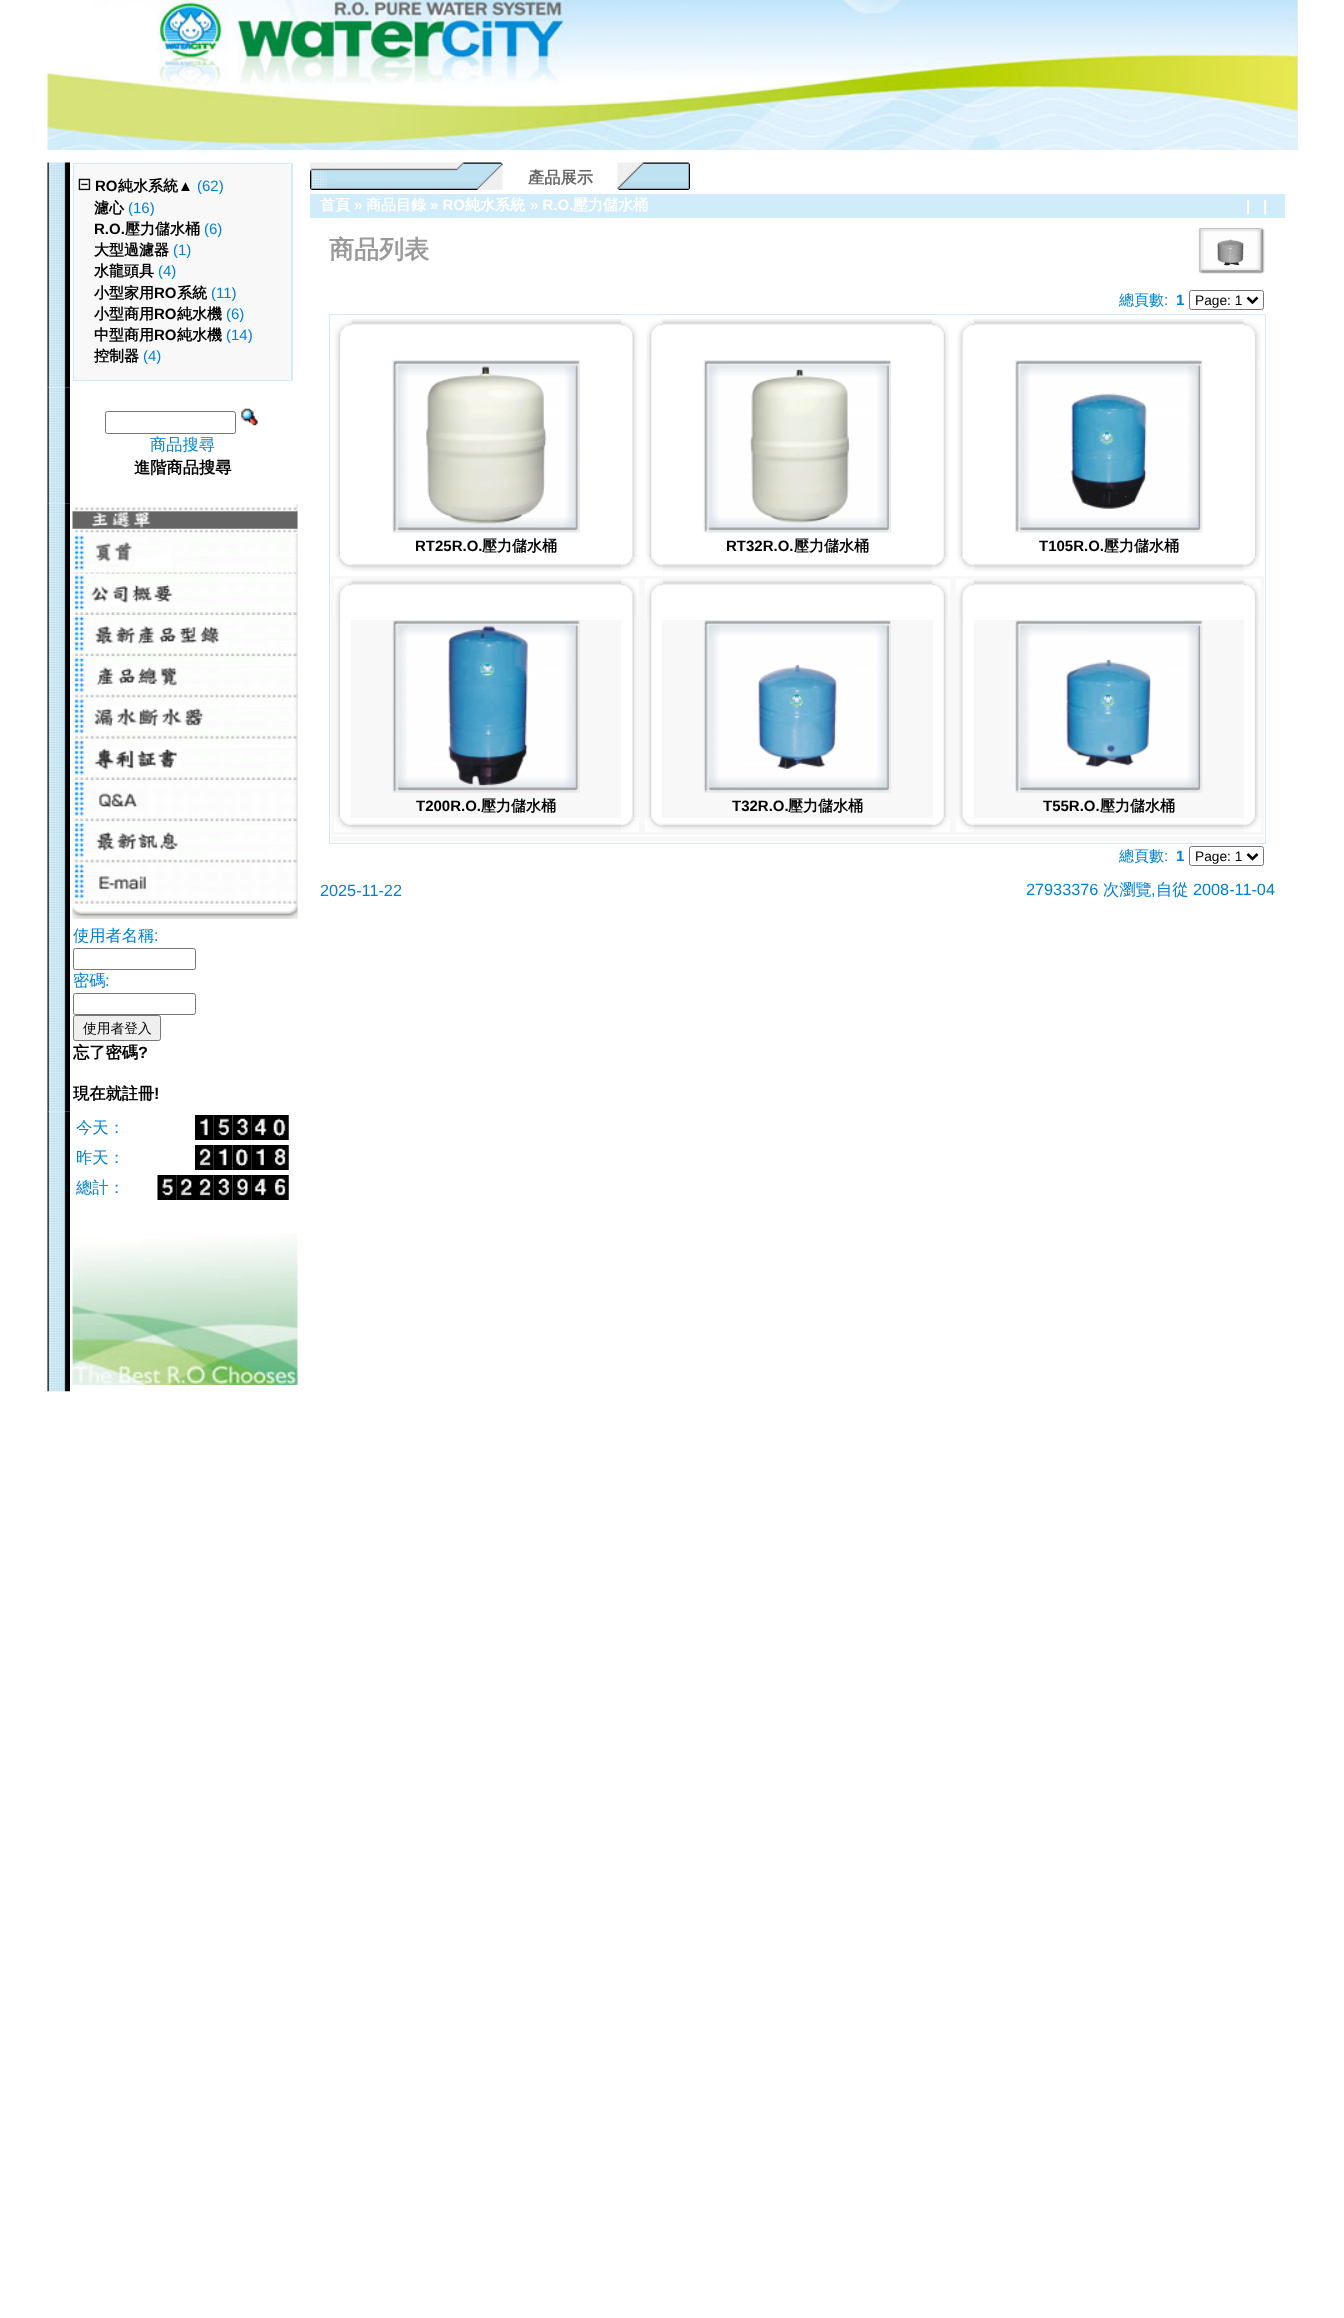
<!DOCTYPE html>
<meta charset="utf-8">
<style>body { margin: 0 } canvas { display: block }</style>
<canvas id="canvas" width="1344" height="2318"></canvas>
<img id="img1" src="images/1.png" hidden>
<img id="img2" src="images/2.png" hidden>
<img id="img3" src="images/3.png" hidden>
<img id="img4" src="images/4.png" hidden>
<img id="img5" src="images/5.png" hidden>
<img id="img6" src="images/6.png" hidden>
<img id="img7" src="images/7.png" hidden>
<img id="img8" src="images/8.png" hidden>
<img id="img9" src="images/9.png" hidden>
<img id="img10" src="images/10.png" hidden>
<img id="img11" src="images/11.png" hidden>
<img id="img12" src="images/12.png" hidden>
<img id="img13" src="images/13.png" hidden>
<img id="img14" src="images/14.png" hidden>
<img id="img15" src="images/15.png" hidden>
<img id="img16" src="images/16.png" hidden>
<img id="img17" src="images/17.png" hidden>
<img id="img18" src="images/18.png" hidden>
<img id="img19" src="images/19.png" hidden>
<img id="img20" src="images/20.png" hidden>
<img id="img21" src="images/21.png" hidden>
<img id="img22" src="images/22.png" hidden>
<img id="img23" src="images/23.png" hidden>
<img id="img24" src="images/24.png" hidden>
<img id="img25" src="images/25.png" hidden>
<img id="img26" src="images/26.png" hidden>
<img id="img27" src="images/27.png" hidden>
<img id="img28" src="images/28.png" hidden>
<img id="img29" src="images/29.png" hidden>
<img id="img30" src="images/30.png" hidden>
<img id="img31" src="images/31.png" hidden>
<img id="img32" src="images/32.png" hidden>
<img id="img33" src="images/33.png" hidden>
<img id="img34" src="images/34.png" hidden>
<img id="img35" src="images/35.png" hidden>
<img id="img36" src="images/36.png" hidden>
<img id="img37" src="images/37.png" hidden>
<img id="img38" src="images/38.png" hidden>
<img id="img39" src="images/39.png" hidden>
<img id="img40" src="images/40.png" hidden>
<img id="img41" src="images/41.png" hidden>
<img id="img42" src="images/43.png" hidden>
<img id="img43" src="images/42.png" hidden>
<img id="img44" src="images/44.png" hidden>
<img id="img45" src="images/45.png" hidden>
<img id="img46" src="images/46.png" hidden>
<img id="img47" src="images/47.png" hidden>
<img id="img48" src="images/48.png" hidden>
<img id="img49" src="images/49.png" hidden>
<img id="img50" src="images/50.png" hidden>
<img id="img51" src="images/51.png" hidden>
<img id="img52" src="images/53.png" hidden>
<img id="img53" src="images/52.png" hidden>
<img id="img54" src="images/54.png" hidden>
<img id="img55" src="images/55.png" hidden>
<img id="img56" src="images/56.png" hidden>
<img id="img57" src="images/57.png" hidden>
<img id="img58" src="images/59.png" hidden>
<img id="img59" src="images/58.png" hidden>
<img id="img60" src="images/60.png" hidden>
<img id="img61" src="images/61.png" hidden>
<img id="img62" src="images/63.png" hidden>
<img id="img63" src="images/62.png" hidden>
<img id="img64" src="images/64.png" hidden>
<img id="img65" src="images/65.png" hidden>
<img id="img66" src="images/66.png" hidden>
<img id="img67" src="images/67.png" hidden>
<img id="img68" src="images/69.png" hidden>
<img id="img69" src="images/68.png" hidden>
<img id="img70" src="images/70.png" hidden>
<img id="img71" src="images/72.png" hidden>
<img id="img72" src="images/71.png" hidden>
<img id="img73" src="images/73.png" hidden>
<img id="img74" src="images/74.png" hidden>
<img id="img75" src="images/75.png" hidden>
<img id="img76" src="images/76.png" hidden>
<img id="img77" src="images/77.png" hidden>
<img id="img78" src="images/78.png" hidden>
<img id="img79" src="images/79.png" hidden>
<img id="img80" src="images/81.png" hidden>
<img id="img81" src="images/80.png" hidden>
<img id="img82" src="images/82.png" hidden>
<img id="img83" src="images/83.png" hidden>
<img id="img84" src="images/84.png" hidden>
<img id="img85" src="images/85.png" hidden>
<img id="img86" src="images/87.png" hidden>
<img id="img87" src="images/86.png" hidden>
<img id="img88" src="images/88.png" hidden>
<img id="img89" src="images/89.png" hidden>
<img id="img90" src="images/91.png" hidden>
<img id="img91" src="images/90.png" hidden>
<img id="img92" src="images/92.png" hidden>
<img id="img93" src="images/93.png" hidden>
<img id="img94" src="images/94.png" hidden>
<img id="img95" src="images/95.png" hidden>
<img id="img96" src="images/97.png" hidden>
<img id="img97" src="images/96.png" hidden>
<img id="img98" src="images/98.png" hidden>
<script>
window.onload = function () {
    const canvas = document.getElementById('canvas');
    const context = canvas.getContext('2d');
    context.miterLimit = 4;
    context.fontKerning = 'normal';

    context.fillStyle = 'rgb(255, 255, 255)';
    context.fillRect(0, 0, 1344, 2318);
    context.fillStyle = 'rgb(239, 239, 239)';
    context.fillRect(1297, 0, 1, 150);
    context.drawImage(document.getElementById('img1'), 47, 0, 1251, 150);
    context.drawImage(document.getElementById('img2'), 47, 162, 23, 226);
    context.fillStyle = 'rgb(208, 236, 250)';
    context.fillRect(73, 163, 220, 218);
    context.fillStyle = 'rgb(248, 248, 249)';
    context.fillRect(74, 164, 217, 216);
    context.drawImage(document.getElementById('img3'), 78, 178, 13, 13);
    context.drawImage(document.getElementById('img4'), 47, 387, 23, 117);
    context.beginPath();
    context.roundRect(105.5, 411.5, 130, 22, 2);
    context.strokeStyle = 'rgb(118, 118, 118)';
    context.stroke();
    context.drawImage(document.getElementById('img5'), 241, 408, 17, 18);
    context.drawImage(document.getElementById('img6'), 47, 503, 23, 422);
    context.fillStyle = 'rgb(242, 242, 237)';
    context.fillRect(73, 504, 225, 415);
    context.drawImage(document.getElementById('img7'), 72, 503, 226, 30);
    context.drawImage(document.getElementById('img8'), 73, 532, 225, 42);
    context.drawImage(document.getElementById('img9'), 73, 573, 225, 42);
    context.drawImage(document.getElementById('img10'), 73, 615, 225, 42);
    context.drawImage(document.getElementById('img11'), 73, 656, 225, 42);
    context.drawImage(document.getElementById('img12'), 73, 697, 225, 42);
    context.drawImage(document.getElementById('img13'), 73, 738, 225, 42);
    context.drawImage(document.getElementById('img14'), 73, 780, 225, 42);
    context.drawImage(document.getElementById('img15'), 73, 821, 225, 42);
    context.drawImage(document.getElementById('img16'), 73, 862, 225, 42);
    context.drawImage(document.getElementById('img17'), 72, 903, 226, 16);
    context.drawImage(document.getElementById('img18'), 47, 925, 23, 187);
    context.beginPath();
    context.roundRect(73.5, 948.5, 122, 21, 2);
    context.stroke();
    context.beginPath();
    context.roundRect(73.5, 993.5, 122, 21, 2);
    context.stroke();
    context.fillStyle = 'rgb(239, 239, 239)';
    context.beginPath();
    context.roundRect(73.5, 1015.5, 87, 25, 2);
    context.fill();
    context.stroke();
    context.fillStyle = 'rgb(255, 255, 255)';
    context.fillRect(48, 1111, 22, 1);
    context.drawImage(document.getElementById('img19'), 47, 1111, 23, 99);
    context.drawImage(document.getElementById('img20'), 195, 1115, 19, 25);
    context.drawImage(document.getElementById('img21'), 213, 1115, 20, 25);
    context.drawImage(document.getElementById('img22'), 232, 1115, 20, 25);
    context.drawImage(document.getElementById('img23'), 251, 1115, 19, 25);
    context.drawImage(document.getElementById('img24'), 270, 1115, 19, 25);
    context.drawImage(document.getElementById('img25'), 195, 1145, 19, 25);
    context.drawImage(document.getElementById('img26'), 213, 1145, 20, 25);
    context.drawImage(document.getElementById('img27'), 232, 1145, 20, 25);
    context.drawImage(document.getElementById('img28'), 251, 1145, 19, 25);
    context.drawImage(document.getElementById('img29'), 270, 1145, 19, 25);
    context.drawImage(document.getElementById('img30'), 157, 1175, 20, 25);
    context.drawImage(document.getElementById('img31'), 176, 1175, 19, 25);
    context.drawImage(document.getElementById('img32'), 195, 1175, 19, 25);
    context.drawImage(document.getElementById('img33'), 213, 1175, 20, 25);
    context.drawImage(document.getElementById('img34'), 232, 1175, 20, 25);
    context.drawImage(document.getElementById('img35'), 251, 1175, 19, 25);
    context.drawImage(document.getElementById('img36'), 270, 1175, 19, 25);
    context.drawImage(document.getElementById('img37'), 47, 1210, 23, 182);
    context.drawImage(document.getElementById('img38'), 72, 1233, 226, 152);
    context.drawImage(document.getElementById('img39'), 310, 162, 193, 28);
    context.drawImage(document.getElementById('img40'), 617, 162, 73, 28);
    context.fillStyle = 'rgb(208, 236, 250)';
    context.fillRect(310, 194, 975, 24);
    context.drawImage(document.getElementById('img41'), 1198, 227, 67, 47);
    context.beginPath();
    context.roundRect(1189.5, 290.5, 74, 19, 2);
    context.stroke();
    context.beginPath();
    context.moveTo(1247.5, 297.5);
    context.lineTo(1252.5, 302.5);
    context.lineTo(1257.5, 297.5);
    context.strokeStyle = 'rgb(0, 0, 0)';
    context.lineWidth = 2.5;
    context.stroke();
    context.strokeStyle = 'rgb(208, 236, 250)';
    context.lineWidth = 1;
    context.strokeRect(329.5, 314.5, 936, 529);
    context.drawImage(document.getElementById('img42'), 351, 319, 271, 6);
    context.drawImage(document.getElementById('img43'), 334, 320, 18, 40);
    context.drawImage(document.getElementById('img44'), 621, 320, 17, 40);
    context.drawImage(document.getElementById('img45'), 335, 360, 5, 198);
    context.drawImage(document.getElementById('img46'), 392, 360, 188, 173);
    context.drawImage(document.getElementById('img47'), 632, 360, 6, 198);
    context.drawImage(document.getElementById('img48'), 336, 557, 15, 13);
    context.drawImage(document.getElementById('img49'), 351, 563, 271, 9);
    context.drawImage(document.getElementById('img50'), 351, 565, 1, 3);
    context.drawImage(document.getElementById('img51'), 621, 557, 16, 13);
    context.drawImage(document.getElementById('img52'), 662, 319, 271, 6);
    context.drawImage(document.getElementById('img53'), 646, 320, 17, 40);
    context.drawImage(document.getElementById('img54'), 932, 320, 17, 40);
    context.drawImage(document.getElementById('img55'), 646, 360, 6, 198);
    context.drawImage(document.getElementById('img56'), 703, 360, 189, 173);
    context.drawImage(document.getElementById('img57'), 943, 360, 6, 198);
    context.drawImage(document.getElementById('img58'), 662, 563, 271, 9);
    context.drawImage(document.getElementById('img59'), 647, 557, 16, 13);
    context.drawImage(document.getElementById('img60'), 662, 564, 1, 4);
    context.drawImage(document.getElementById('img61'), 932, 557, 16, 13);
    context.drawImage(document.getElementById('img62'), 973, 319, 271, 6);
    context.drawImage(document.getElementById('img63'), 957, 320, 17, 40);
    context.drawImage(document.getElementById('img64'), 1243, 320, 18, 40);
    context.drawImage(document.getElementById('img65'), 957, 360, 6, 198);
    context.drawImage(document.getElementById('img66'), 1015, 360, 188, 173);
    context.drawImage(document.getElementById('img67'), 1255, 360, 5, 198);
    context.fillStyle = 'rgb(250, 250, 250)';
    context.fillRect(1260, 367, 1, 185);
    context.drawImage(document.getElementById('img68'), 973, 563, 271, 9);
    context.drawImage(document.getElementById('img69'), 958, 557, 16, 13);
    context.drawImage(document.getElementById('img70'), 1244, 557, 15, 13);
    context.fillStyle = 'rgb(248, 248, 249)';
    context.fillRect(331, 576, 933, 259);
    context.drawImage(document.getElementById('img71'), 351, 579, 271, 41);
    context.drawImage(document.getElementById('img72'), 334, 579, 18, 41);
    context.drawImage(document.getElementById('img73'), 621, 579, 18, 41);
    context.drawImage(document.getElementById('img74'), 336, 620, 15, 198);
    context.drawImage(document.getElementById('img75'), 392, 620, 188, 173);
    context.drawImage(document.getElementById('img76'), 621, 620, 15, 198);
    context.drawImage(document.getElementById('img77'), 334, 817, 17, 15);
    context.drawImage(document.getElementById('img78'), 351, 818, 271, 12);
    context.fillStyle = 'rgb(220, 220, 220)';
    context.fillRect(351, 825, 1, 2);
    context.drawImage(document.getElementById('img79'), 621, 817, 18, 15);
    context.drawImage(document.getElementById('img80'), 662, 579, 271, 41);
    context.drawImage(document.getElementById('img81'), 645, 579, 18, 41);
    context.drawImage(document.getElementById('img82'), 932, 579, 18, 41);
    context.drawImage(document.getElementById('img83'), 648, 620, 14, 198);
    context.drawImage(document.getElementById('img84'), 703, 620, 189, 173);
    context.drawImage(document.getElementById('img85'), 933, 620, 15, 198);
    context.drawImage(document.getElementById('img86'), 662, 818, 271, 12);
    context.drawImage(document.getElementById('img87'), 645, 817, 18, 15);
    context.drawImage(document.getElementById('img88'), 662, 824, 1, 4);
    context.drawImage(document.getElementById('img89'), 932, 817, 18, 15);
    context.drawImage(document.getElementById('img90'), 973, 579, 271, 41);
    context.drawImage(document.getElementById('img91'), 956, 579, 18, 41);
    context.drawImage(document.getElementById('img92'), 1243, 579, 18, 41);
    context.drawImage(document.getElementById('img93'), 959, 620, 15, 198);
    context.drawImage(document.getElementById('img94'), 1015, 620, 188, 173);
    context.drawImage(document.getElementById('img95'), 1244, 620, 15, 198);
    context.drawImage(document.getElementById('img96'), 973, 818, 271, 12);
    context.drawImage(document.getElementById('img97'), 956, 817, 18, 15);
    context.drawImage(document.getElementById('img98'), 1244, 817, 17, 15);
    context.fillStyle = 'rgb(248, 248, 249)';
    context.fillRect(331, 836, 933, 5);
    context.beginPath();
    context.roundRect(1189.5, 846.5, 74, 19, 2);
    context.strokeStyle = 'rgb(118, 118, 118)';
    context.stroke();
    context.beginPath();
    context.moveTo(1247.5, 854);
    context.lineTo(1252.5, 859);
    context.lineTo(1257.5, 854);
    context.strokeStyle = 'rgb(0, 0, 0)';
    context.lineWidth = 2.5;
    context.stroke();
    context.font = 'bold 15px Liberation Sans';
    context.fillStyle = 'rgb(0, 0, 0)';
    context.fillText('RO', 95, 191);
    context.font = 'bold 15px WenQuanYi Zen Hei';
    context.fillText('純水系統', 118, 191);
    context.font = 'bold 15px Liberation Sans';
    context.fillText('▲', 178, 191);
    context.font = '15px Liberation Sans';
    context.fillStyle = 'rgb(0, 129, 210)';
    context.fillText('(62)', 197, 191);
    context.font = 'bold 15px WenQuanYi Zen Hei';
    context.fillStyle = 'rgb(0, 0, 0)';
    context.fillText('濾心', 94, 213);
    context.font = '15px Liberation Sans';
    context.fillStyle = 'rgb(0, 129, 210)';
    context.fillText('(16)', 128, 213);
    context.font = 'bold 15px Liberation Sans';
    context.fillStyle = 'rgb(0, 0, 0)';
    context.fillText('R.O.', 94, 234);
    context.font = 'bold 15px WenQuanYi Zen Hei';
    context.fillText('壓力儲水桶', 125, 234);
    context.font = '15px Liberation Sans';
    context.fillStyle = 'rgb(0, 129, 210)';
    context.fillText('(6)', 204, 234);
    context.font = 'bold 15px WenQuanYi Zen Hei';
    context.fillStyle = 'rgb(0, 0, 0)';
    context.fillText('大型過濾器', 94, 255);
    context.font = '15px Liberation Sans';
    context.fillStyle = 'rgb(0, 129, 210)';
    context.fillText('(1)', 173, 255);
    context.font = 'bold 15px WenQuanYi Zen Hei';
    context.fillStyle = 'rgb(0, 0, 0)';
    context.fillText('水龍頭具', 94, 276);
    context.font = '15px Liberation Sans';
    context.fillStyle = 'rgb(0, 129, 210)';
    context.fillText('(4)', 158, 276);
    context.font = 'bold 15px WenQuanYi Zen Hei';
    context.fillStyle = 'rgb(0, 0, 0)';
    context.fillText('小型家用', 94, 298);
    context.font = 'bold 15px Liberation Sans';
    context.fillText('RO', 154, 298);
    context.font = 'bold 15px WenQuanYi Zen Hei';
    context.fillText('系統', 177, 298);
    context.font = '15px Liberation Sans';
    context.fillStyle = 'rgb(0, 129, 210)';
    context.fillText('(11)', 211, 298);
    context.font = 'bold 15px WenQuanYi Zen Hei';
    context.fillStyle = 'rgb(0, 0, 0)';
    context.fillText('小型商用', 94, 319);
    context.font = 'bold 15px Liberation Sans';
    context.fillText('RO', 154, 319);
    context.font = 'bold 15px WenQuanYi Zen Hei';
    context.fillText('純水機', 177, 319);
    context.font = '15px Liberation Sans';
    context.fillStyle = 'rgb(0, 129, 210)';
    context.fillText('(6)', 226, 319);
    context.font = 'bold 15px WenQuanYi Zen Hei';
    context.fillStyle = 'rgb(0, 0, 0)';
    context.fillText('中型商用', 94, 340);
    context.font = 'bold 15px Liberation Sans';
    context.fillText('RO', 154, 340);
    context.font = 'bold 15px WenQuanYi Zen Hei';
    context.fillText('純水機', 177, 340);
    context.font = '15px Liberation Sans';
    context.fillStyle = 'rgb(0, 129, 210)';
    context.fillText('(14)', 226, 340);
    context.font = 'bold 15px WenQuanYi Zen Hei';
    context.fillStyle = 'rgb(0, 0, 0)';
    context.fillText('控制器', 94, 361);
    context.font = '15px Liberation Sans';
    context.fillStyle = 'rgb(0, 129, 210)';
    context.fillText('(4)', 143, 361);
    context.font = '500 16.25px WenQuanYi Zen Hei';
    context.fillText('商品搜尋', 150, 450);
    context.font = 'bold 16.25px WenQuanYi Zen Hei';
    context.fillStyle = 'rgb(0, 0, 0)';
    context.fillText('進階商品搜尋', 134, 473);
    context.font = '500 16.25px WenQuanYi Zen Hei';
    context.fillStyle = 'rgb(0, 129, 210)';
    context.fillText('使用者名稱', 73, 941);
    context.font = '16.25px Liberation Sans';
    context.fillText(':', 154, 941);
    context.font = '500 16.25px WenQuanYi Zen Hei';
    context.fillText('密碼', 73, 986);
    context.font = '16.25px Liberation Sans';
    context.fillText(':', 105, 986);
    context.font = '500 13.75px WenQuanYi Zen Hei';
    context.fillStyle = 'rgb(0, 0, 0)';
    context.fillText('使用者登入', 83, 1033);
    context.font = 'bold 16.25px WenQuanYi Zen Hei';
    context.fillText('忘了密碼', 73, 1058);
    context.font = 'bold 16.25px Liberation Sans';
    context.fillText('?', 138, 1058);
    context.font = 'bold 16.25px WenQuanYi Zen Hei';
    context.fillText('現在就註冊', 73, 1099);
    context.font = 'bold 16.25px Liberation Sans';
    context.fillText('!', 154, 1099);
    context.font = '500 16.25px WenQuanYi Zen Hei';
    context.fillStyle = 'rgb(0, 129, 210)';
    context.fillText('今天：', 76, 1133);
    context.fillText('昨天：', 76, 1163);
    context.fillText('總計：', 76, 1193);
    context.font = 'bold 16.25px WenQuanYi Zen Hei';
    context.fillStyle = 'rgb(102, 102, 102)';
    context.fillText('產品展示', 528, 183);
    context.font = 'bold 15px WenQuanYi Zen Hei';
    context.fillStyle = 'rgb(255, 255, 255)';
    context.fillText('首頁', 320, 210);
    context.font = 'bold 15px Liberation Sans';
    context.fillText('»', 354, 210);
    context.font = 'bold 15px WenQuanYi Zen Hei';
    context.fillText('商品目錄', 366, 210);
    context.font = 'bold 15px Liberation Sans';
    context.fillText('» RO', 430, 210);
    context.font = 'bold 15px WenQuanYi Zen Hei';
    context.fillText('純水系統', 465, 210);
    context.font = 'bold 15px Liberation Sans';
    context.fillText('» R.O.', 530, 210);
    context.font = 'bold 15px WenQuanYi Zen Hei';
    context.fillText('壓力儲水桶', 573, 210);
    context.font = 'bold 15px Liberation Sans';
    context.fillText('|', 1246, 211);
    context.fillText('|', 1263, 211);
    context.font = 'bold 25px WenQuanYi Zen Hei';
    context.fillStyle = 'rgb(154, 154, 154)';
    context.fillText('商品列表', 329, 258);
    context.font = '500 15px WenQuanYi Zen Hei';
    context.fillStyle = 'rgb(0, 129, 210)';
    context.fillText('總頁數', 1119, 305);
    context.font = '15px Liberation Sans';
    context.fillText(':', 1164, 305);
    context.font = 'bold 15px Liberation Sans';
    context.fillText('1', 1176, 305);
    context.font = '13.75px Liberation Sans';
    context.fillStyle = 'rgb(0, 0, 0)';
    context.fillText('Page: 1', 1195, 305);
    context.font = 'bold 15px Liberation Sans';
    context.fillText('RT25R.O.', 415, 551);
    context.font = 'bold 15px WenQuanYi Zen Hei';
    context.fillText('壓力儲水桶', 482, 551);
    context.font = 'bold 15px Liberation Sans';
    context.fillText('RT32R.O.', 726, 551);
    context.font = 'bold 15px WenQuanYi Zen Hei';
    context.fillText('壓力儲水桶', 794, 551);
    context.font = 'bold 15px Liberation Sans';
    context.fillText('T105R.O.', 1039, 551);
    context.font = 'bold 15px WenQuanYi Zen Hei';
    context.fillText('壓力儲水桶', 1104, 551);
    context.font = 'bold 15px Liberation Sans';
    context.fillText('T200R.O.', 416, 811);
    context.font = 'bold 15px WenQuanYi Zen Hei';
    context.fillText('壓力儲水桶', 481, 811);
    context.font = 'bold 15px Liberation Sans';
    context.fillText('T32R.O.', 732, 811);
    context.font = 'bold 15px WenQuanYi Zen Hei';
    context.fillText('壓力儲水桶', 788, 811);
    context.font = 'bold 15px Liberation Sans';
    context.fillText('T55R.O.', 1043, 811);
    context.font = 'bold 15px WenQuanYi Zen Hei';
    context.fillText('壓力儲水桶', 1100, 811);
    context.font = '500 15px WenQuanYi Zen Hei';
    context.fillStyle = 'rgb(0, 129, 210)';
    context.fillText('總頁數', 1119, 861);
    context.font = '15px Liberation Sans';
    context.fillText(':', 1164, 861);
    context.font = 'bold 15px Liberation Sans';
    context.fillText('1', 1176, 861);
    context.font = '13.75px Liberation Sans';
    context.fillStyle = 'rgb(0, 0, 0)';
    context.fillText('Page: 1', 1195, 861);
    context.font = '16.25px Liberation Sans';
    context.fillStyle = 'rgb(0, 129, 210)';
    context.fillText('2025-11-22', 320, 896);
    context.fillText('27933376', 1026, 895);
    context.font = '500 16.25px WenQuanYi Zen Hei';
    context.fillText('次瀏覽', 1103, 895);
    context.font = '16.25px Liberation Sans';
    context.fillText(',', 1151, 895);
    context.font = '500 16.25px WenQuanYi Zen Hei';
    context.fillText('自從', 1156, 895);
    context.font = '16.25px Liberation Sans';
    context.fillText('2008-11-04', 1193, 895);
};
</script>
